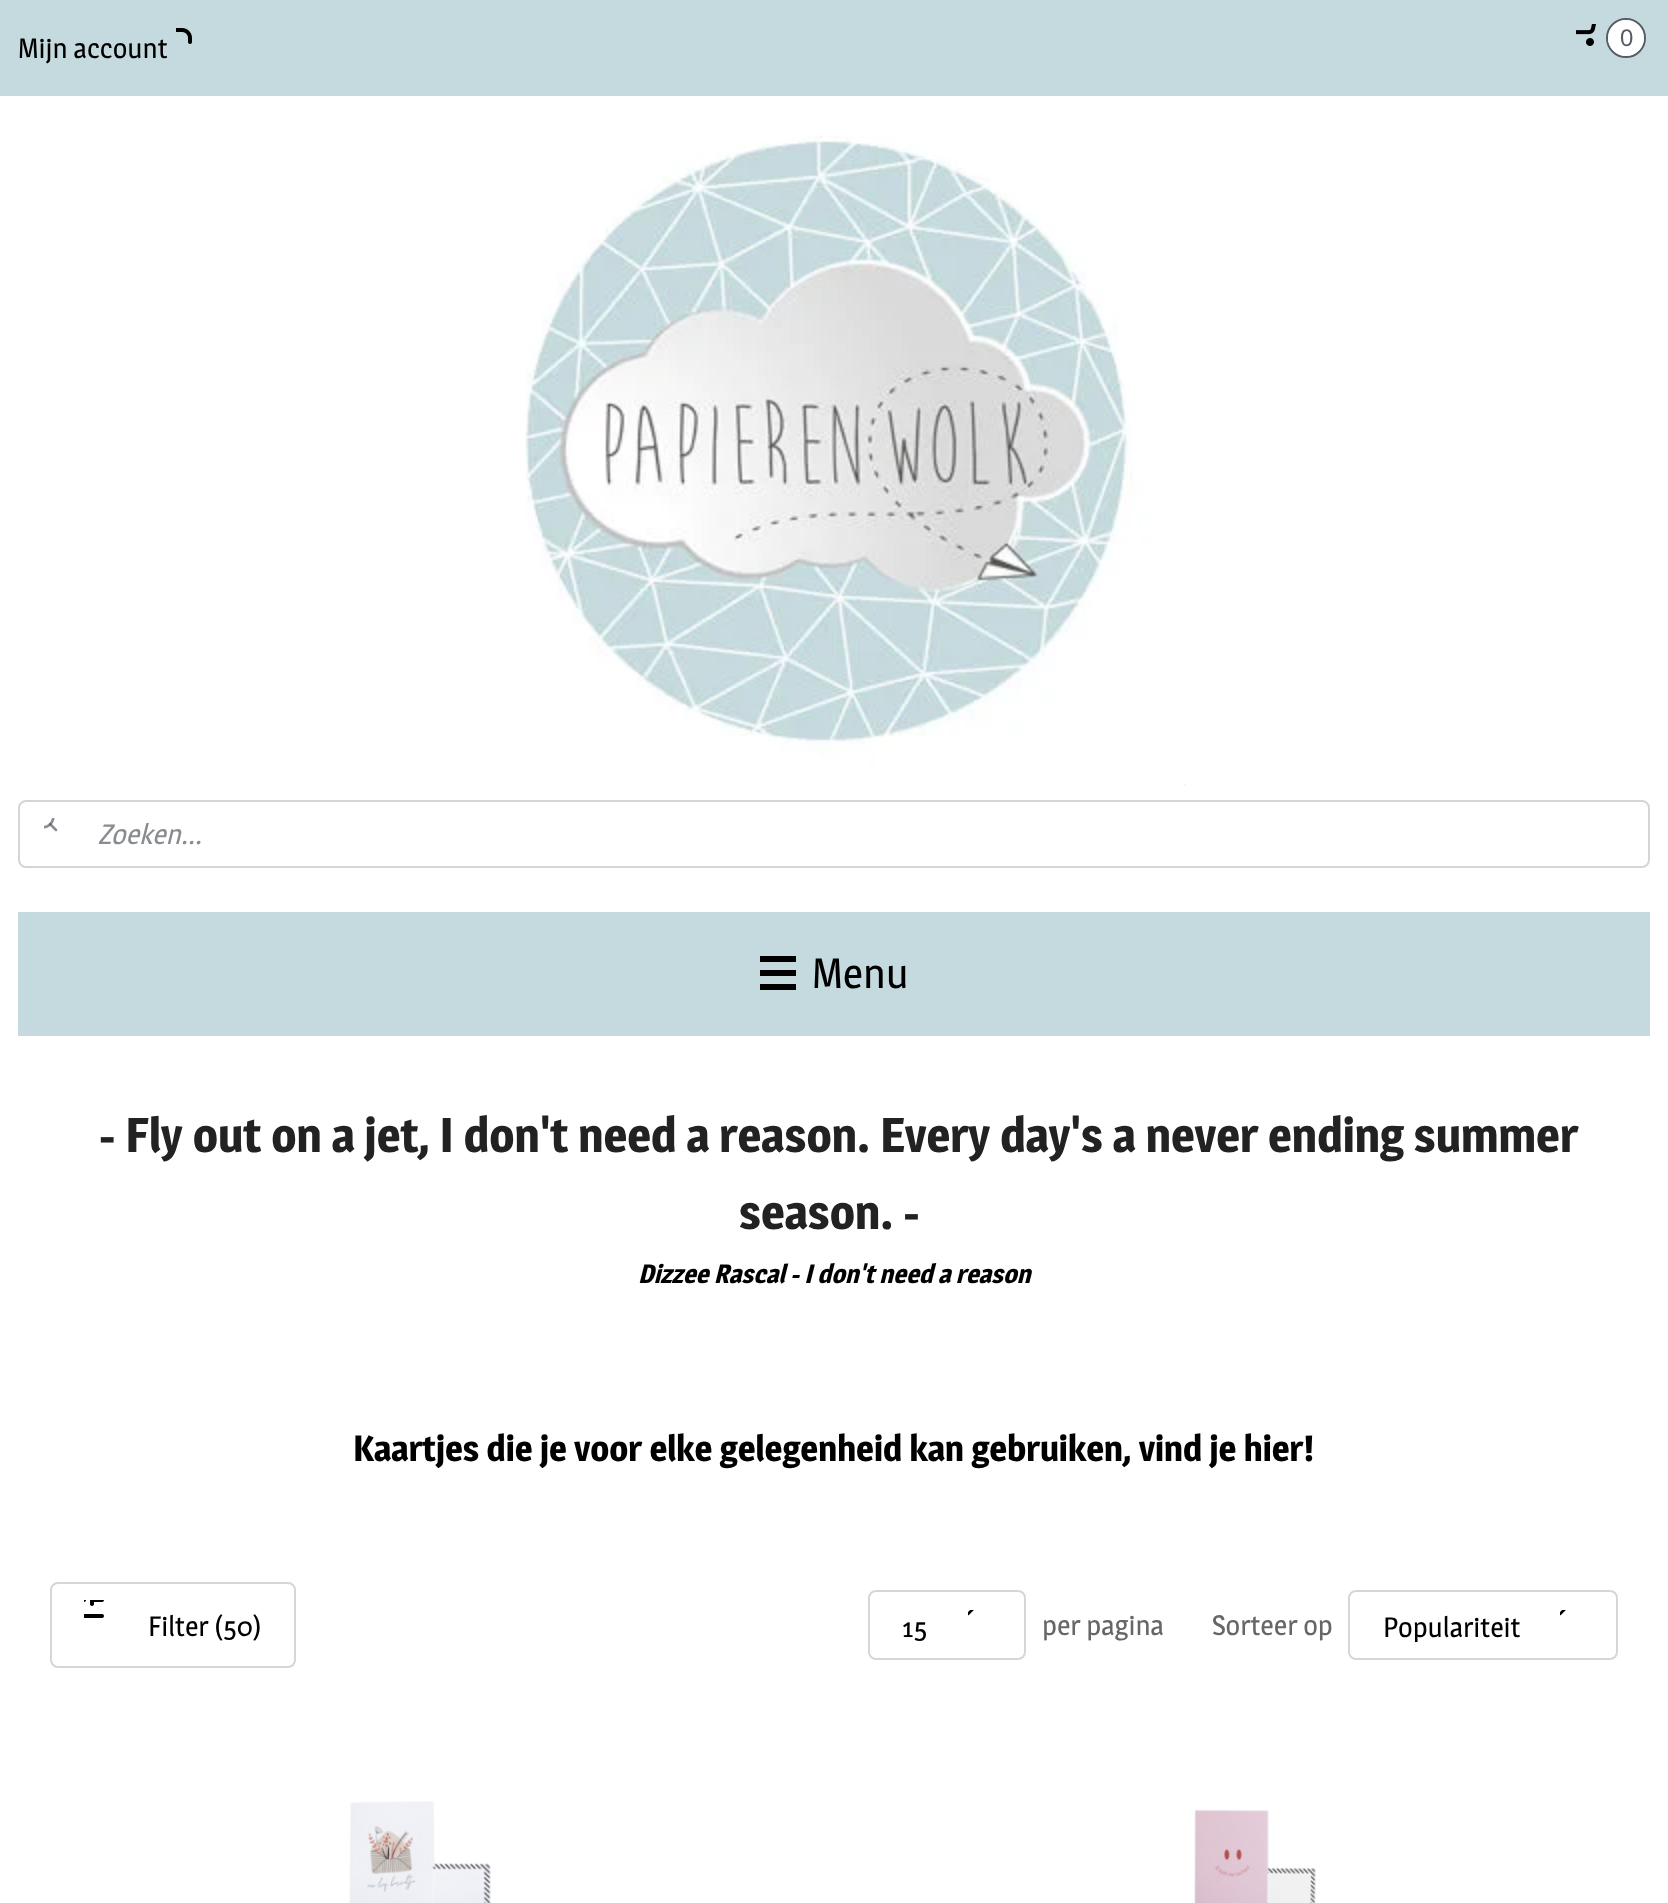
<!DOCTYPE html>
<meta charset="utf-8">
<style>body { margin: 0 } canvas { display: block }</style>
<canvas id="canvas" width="1668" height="1903"></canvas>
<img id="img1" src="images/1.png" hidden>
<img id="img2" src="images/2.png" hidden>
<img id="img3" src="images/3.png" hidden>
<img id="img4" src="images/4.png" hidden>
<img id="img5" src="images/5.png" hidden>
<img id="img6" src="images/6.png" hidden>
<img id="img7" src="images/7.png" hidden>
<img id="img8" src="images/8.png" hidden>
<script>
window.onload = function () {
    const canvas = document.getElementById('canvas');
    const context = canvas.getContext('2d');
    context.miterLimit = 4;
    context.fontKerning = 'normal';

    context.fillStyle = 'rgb(255, 255, 255)';
    context.fillRect(0, 0, 1668, 1903);
    context.fillStyle = 'rgb(197, 218, 222)';
    context.fillRect(0, 0, 1668, 96);
    context.drawImage(document.getElementById('img1'), 176, 28, 16, 16);
    context.drawImage(document.getElementById('img2'), 1576, 24, 20, 22);
    context.beginPath();
    context.arc(1626, 38, 19, 0, 2 * Math.PI);
    context.strokeStyle = 'rgb(87, 91, 98)';
    context.lineWidth = 2;
    context.stroke();
    context.fillStyle = 'rgb(255, 255, 255)';
    context.beginPath();
    context.arc(1626, 38, 18, 0, 2 * Math.PI);
    context.fill();
    context.drawImage(document.getElementById('img3'), 525, 135, 661, 651);
    context.beginPath();
    context.roundRect(19, 801, 1630, 66, 7);
    context.strokeStyle = 'rgb(211, 213, 217)';
    context.stroke();
    context.drawImage(document.getElementById('img4'), 44, 818, 14, 14);
    context.fillStyle = 'rgb(197, 218, 222)';
    context.fillRect(18, 912, 1632, 124);
    context.fillStyle = 'rgb(0, 0, 0)';
    context.fillRect(760, 970, 36, 6);
    context.fillRect(760, 956, 36, 6);
    context.fillRect(760, 984, 36, 6);
    context.beginPath();
    context.roundRect(51, 1583, 244, 84, 7);
    context.strokeStyle = 'rgb(214, 214, 214)';
    context.stroke();
    context.drawImage(document.getElementById('img5'), 84, 1600, 20, 18);
    context.beginPath();
    context.roundRect(869, 1591, 156, 68, 7);
    context.stroke();
    context.drawImage(document.getElementById('img6'), 968, 1610, 6, 6);
    context.beginPath();
    context.roundRect(1349, 1591, 268, 68, 7);
    context.stroke();
    context.drawImage(document.getElementById('img6'), 1560, 1610, 6, 6);
    context.drawImage(document.getElementById('img7'), 349, 1801, 142, 102);
    context.drawImage(document.getElementById('img8'), 1194, 1809, 122, 94);
    context.font = '28px Magra';
    context.fillText('Mijn account', 18, 58);
    context.font = '24px Liberation Sans';
    context.fillStyle = 'rgb(87, 91, 98)';
    context.fillText('0', 1620, 46);
    context.font = 'italic 28px Magra';
    context.fillStyle = 'rgb(137, 140, 145)';
    context.fillText('Zoeken...', 98, 844);
    context.font = '42px Magra';
    context.fillStyle = 'rgb(0, 0, 0)';
    context.fillText('Menu', 812, 988);
    context.font = 'bold 48px Magra';
    context.fillStyle = 'rgb(34, 34, 34)';
    context.fillText('- Fly out on a jet, I don\'t need a reason. Every day\'s a never ending summer', 99, 1152);
    context.fillText('season. -', 739, 1229);
    context.font = 'italic bold 26px Magra';
    context.fillStyle = 'rgb(0, 0, 0)';
    context.fillText('Dizzee Rascal - I don\'t need a reason', 638, 1283);
    context.font = 'bold 36px Magra';
    context.fillText('Kaartjes die je voor elke gelegenheid kan gebruiken, vind je hier!', 353, 1461);
    context.font = '28px Magra';
    context.fillText('Filter (50)', 148, 1636);
    context.fillText('15', 902, 1637);
    context.fillStyle = 'rgb(102, 102, 102)';
    context.fillText('per pagina', 1042, 1635);
    context.fillText('Sorteer op', 1212, 1635);
    context.save();
    context.beginPath();
    context.rect(1382, 1608, 154, 34);
    context.clip();
    context.fillStyle = 'rgb(0, 0, 0)';
    context.fillText('Populariteit', 1383, 1637);
    context.restore();
};
</script>
